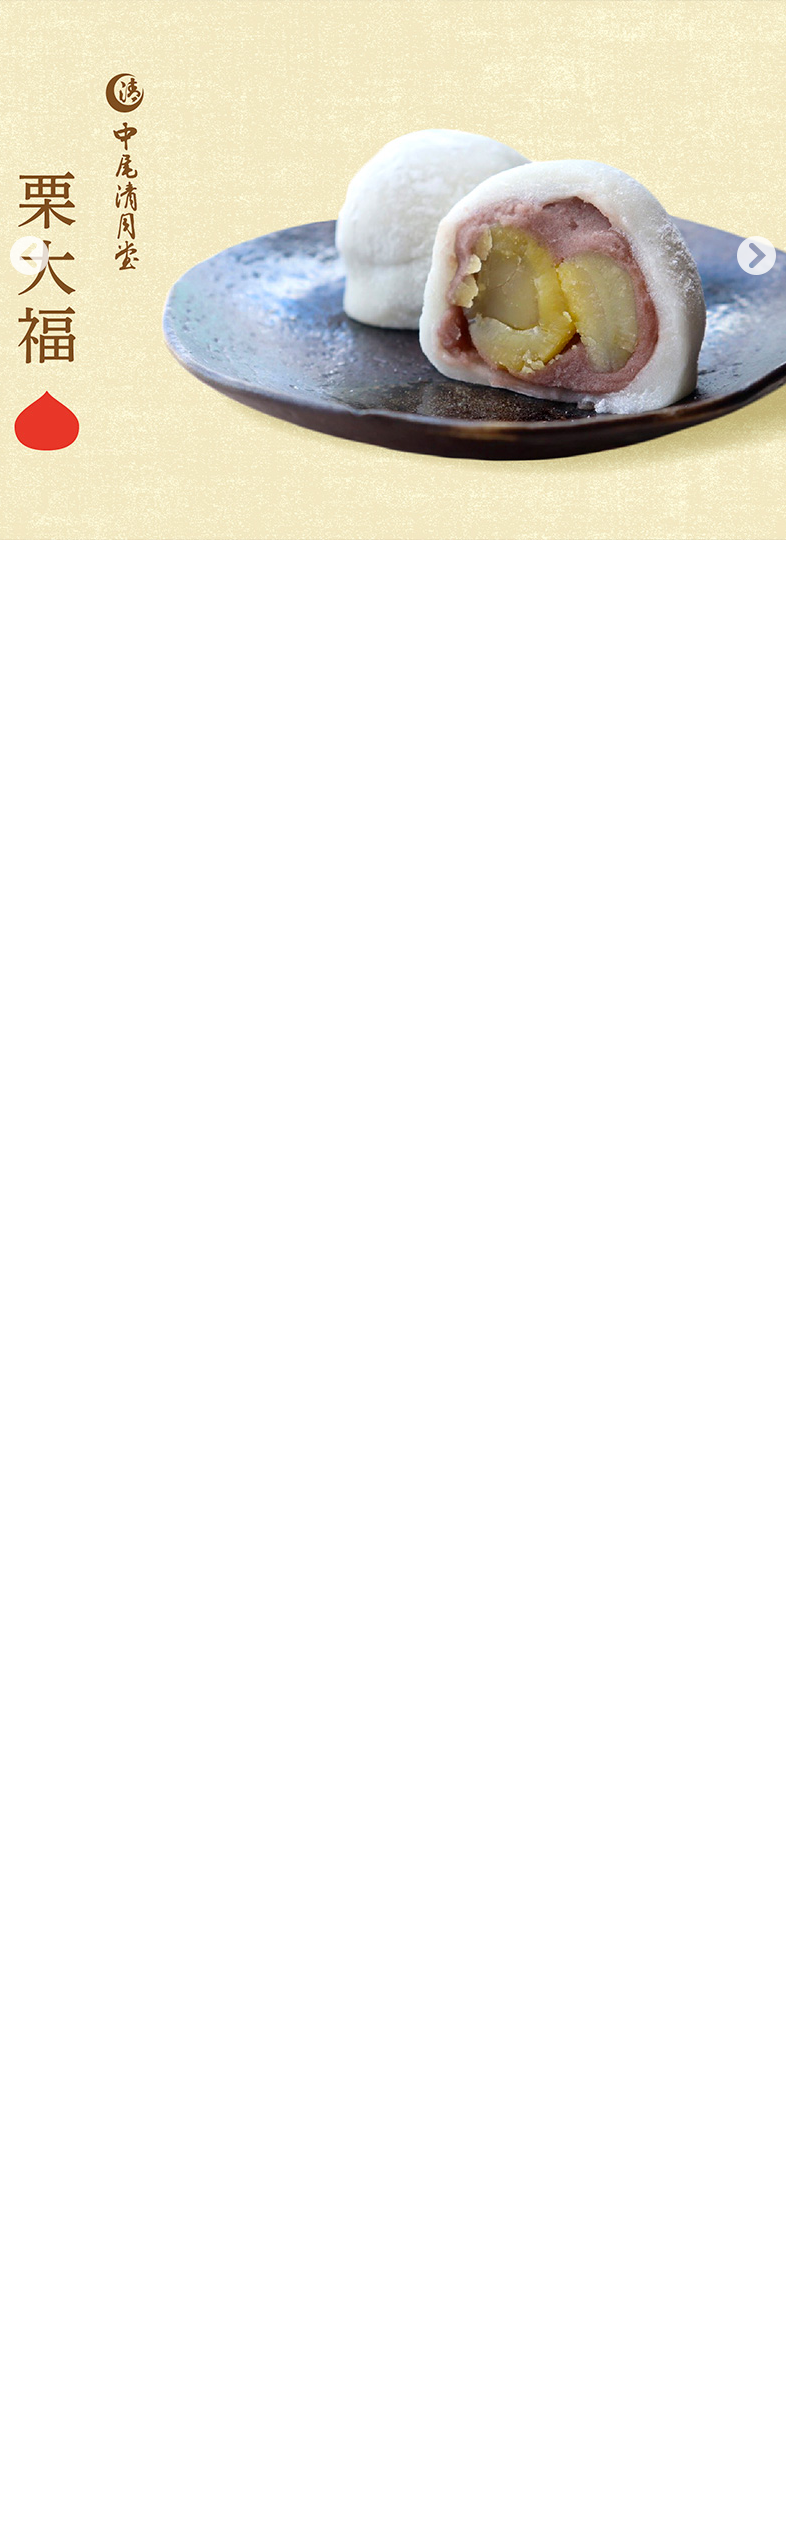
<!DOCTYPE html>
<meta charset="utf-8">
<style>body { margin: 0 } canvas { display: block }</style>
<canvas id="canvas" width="786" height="2521"></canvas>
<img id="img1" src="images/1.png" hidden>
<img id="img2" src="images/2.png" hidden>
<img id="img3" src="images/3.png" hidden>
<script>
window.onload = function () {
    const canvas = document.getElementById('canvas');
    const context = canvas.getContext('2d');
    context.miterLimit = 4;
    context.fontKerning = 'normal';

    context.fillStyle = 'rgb(255, 255, 255)';
    context.fillRect(0, 0, 786, 2521);
    context.drawImage(document.getElementById('img1'), 0, 0, 786, 540);
    context.drawImage(document.getElementById('img2'), 10, 236, 39, 39);
    context.drawImage(document.getElementById('img3'), 737, 236, 39, 39);
};
</script>
